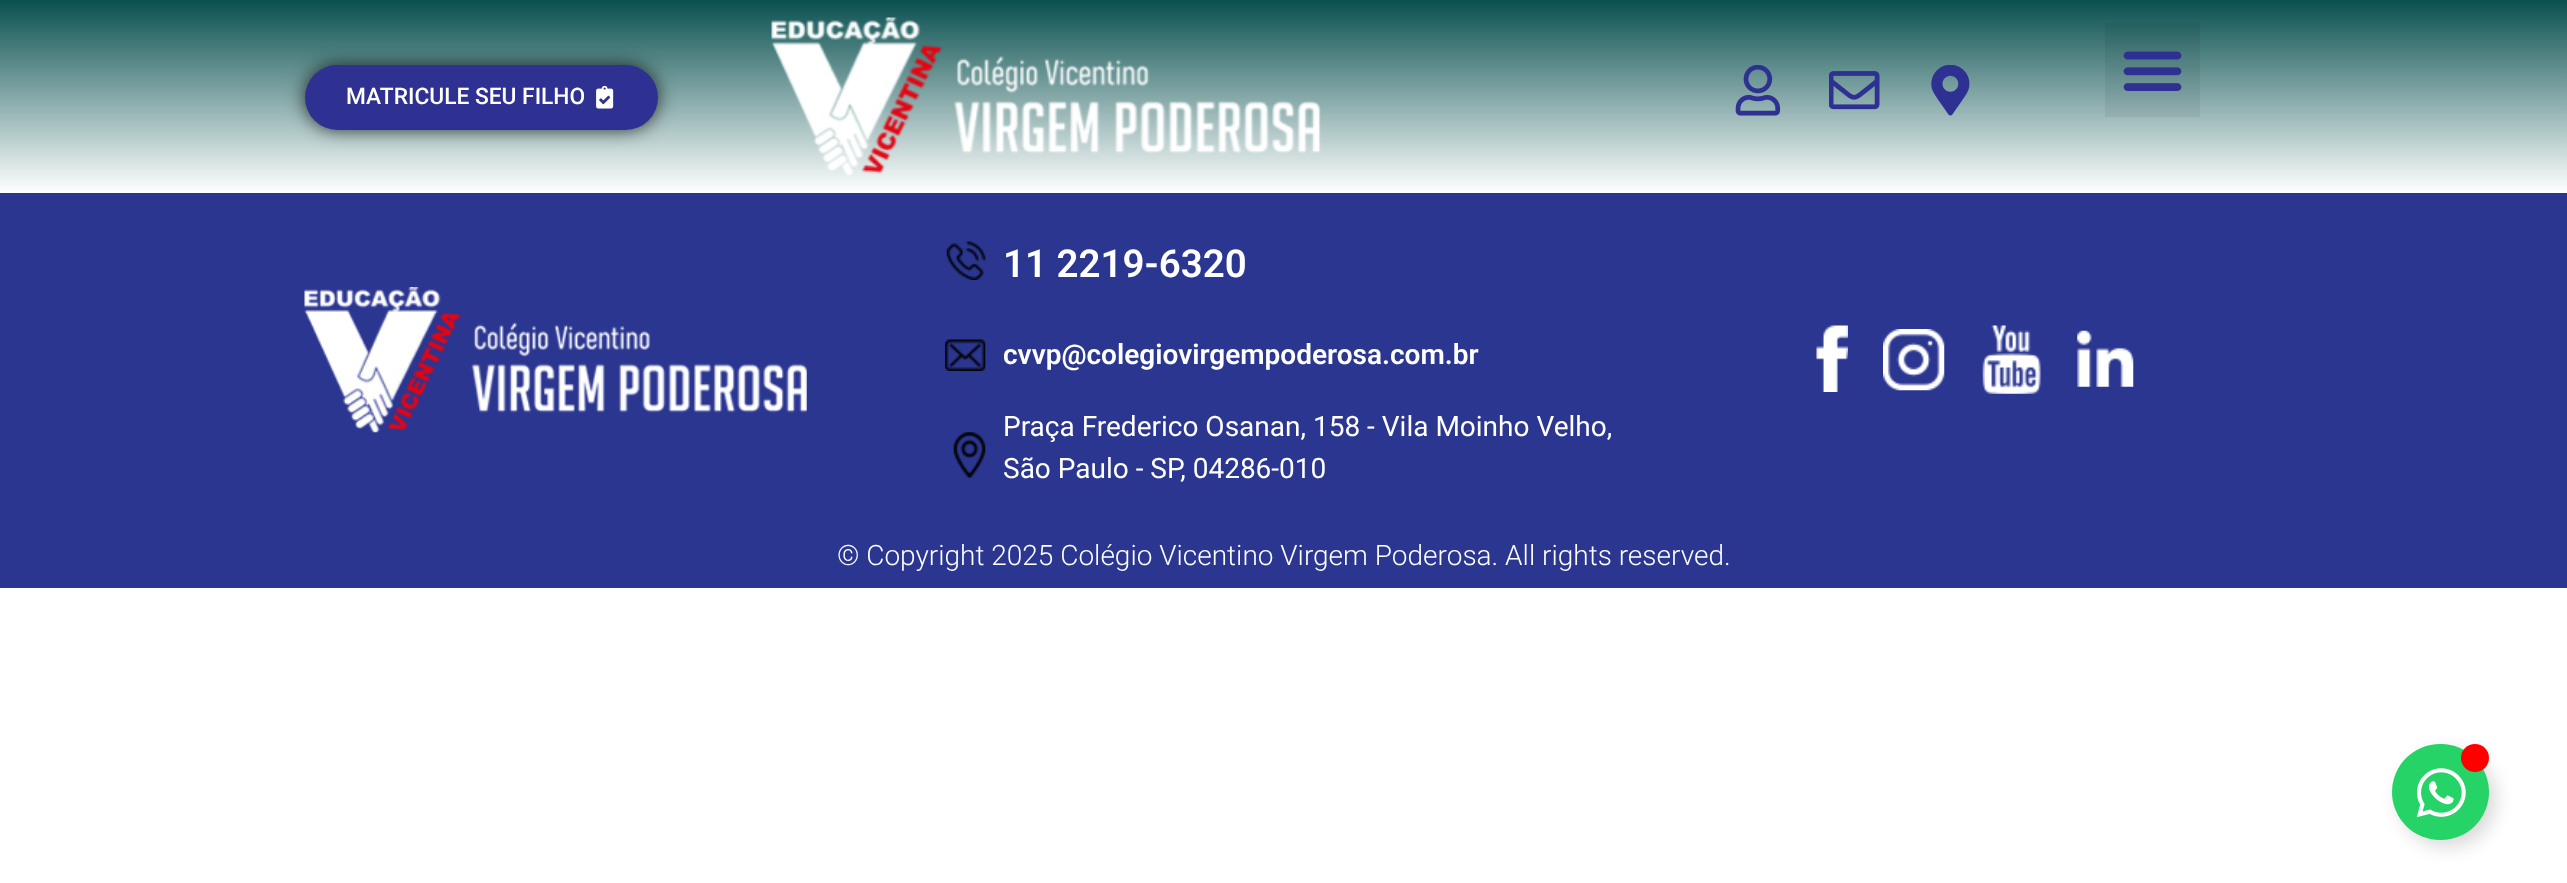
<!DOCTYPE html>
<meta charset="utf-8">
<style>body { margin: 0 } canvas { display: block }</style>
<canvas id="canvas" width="2567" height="883"></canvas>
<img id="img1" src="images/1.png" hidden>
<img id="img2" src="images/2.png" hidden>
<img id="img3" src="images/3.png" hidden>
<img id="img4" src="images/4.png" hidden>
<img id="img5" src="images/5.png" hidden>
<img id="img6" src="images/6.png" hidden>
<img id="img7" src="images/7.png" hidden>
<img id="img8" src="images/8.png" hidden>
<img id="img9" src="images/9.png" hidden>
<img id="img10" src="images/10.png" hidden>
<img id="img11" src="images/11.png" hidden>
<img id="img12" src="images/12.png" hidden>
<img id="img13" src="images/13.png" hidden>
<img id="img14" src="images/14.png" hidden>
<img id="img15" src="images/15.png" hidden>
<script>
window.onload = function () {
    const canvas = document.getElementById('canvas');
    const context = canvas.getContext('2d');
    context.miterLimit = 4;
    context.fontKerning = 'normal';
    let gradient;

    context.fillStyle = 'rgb(255, 255, 255)';
    context.fillRect(0, 0, 2567, 883);
    gradient = context.createLinearGradient(1284, 0, 1284, 193);
    gradient.addColorStop(0, 'rgb(10, 80, 80)');
    gradient.addColorStop(1, 'rgb(255, 255, 255)');
    context.fillStyle = gradient;
    context.fillRect(0, 0, 2567, 191);
    context.fillStyle = 'rgba(0, 0, 0, 0.72)';
    context.filter = 'blur(9px)';
    context.beginPath();
    context.roundRect(305, 65, 353, 65, 32.5);
    context.fill();
    context.filter = 'none';
    context.fillStyle = 'rgb(46, 49, 146)';
    context.beginPath();
    context.roundRect(305, 65, 353, 65, 32.5);
    context.fill();
    context.drawImage(document.getElementById('img1'), 596, 86, 18, 23);
    context.drawImage(document.getElementById('img2'), 771, 17, 550, 158);
    context.drawImage(document.getElementById('img3'), 1735, 65, 46, 51);
    context.drawImage(document.getElementById('img4'), 1829, 71, 51, 39);
    context.drawImage(document.getElementById('img5'), 1931, 65, 39, 51);
    context.fillStyle = 'rgba(0, 0, 0, 0.05)';
    context.fillRect(2105, 23, 95, 94);
    context.drawImage(document.getElementById('img6'), 2123, 51, 59, 40);
    context.fillStyle = 'rgb(43, 54, 144)';
    context.fillRect(0, 193, 2567, 395);
    context.drawImage(document.getElementById('img7'), 304, 287, 503, 146);
    context.drawImage(document.getElementById('img8'), 946, 241, 40, 39);
    context.drawImage(document.getElementById('img9'), 945, 339, 41, 32);
    context.drawImage(document.getElementById('img10'), 953, 432, 33, 46);
    context.drawImage(document.getElementById('img11'), 1816, 325, 32, 67);
    context.drawImage(document.getElementById('img12'), 1883, 329, 62, 62);
    context.drawImage(document.getElementById('img13'), 1982, 325, 59, 69);
    context.drawImage(document.getElementById('img14'), 2077, 330, 57, 57);
    context.fillStyle = 'rgba(0, 0, 0, 0.15)';
    context.filter = 'blur(9px)';
    context.beginPath();
    context.roundRect(2399, 751, 97, 96, 48);
    context.fill();
    context.filter = 'none';
    context.fillStyle = 'rgb(37, 211, 102)';
    context.beginPath();
    context.roundRect(2392, 744, 97, 96, 48);
    context.fill();
    context.drawImage(document.getElementById('img15'), 2416, 768, 50, 50);
    context.fillStyle = 'rgb(255, 0, 0)';
    context.beginPath();
    context.arc(2475, 758, 14, 0, 2 * Math.PI);
    context.fill();
    context.font = '500 22.75px Roboto';
    context.fillStyle = 'rgb(255, 255, 255)';
    context.fillText('MATRICULE SEU FILHO', 346, 104);
    context.font = '600 38.5px Roboto';
    context.fillText('11 2219-6320', 1003, 277);
    context.font = '600 28px Roboto';
    context.fillText('cvvp@colegiovirgempoderosa.com.br', 1003, 364);
    context.font = '28px Roboto';
    context.fillText('Praça Frederico Osanan, 158 - Vila Moinho Velho,', 1003, 436);
    context.fillText('São Paulo - SP, 04286-010', 1003, 478);
    context.font = '300 28px Roboto';
    context.fillText('© Copyright 2025 Colégio Vicentino Virgem Poderosa. All rights reserved.', 837, 565);
};
</script>
